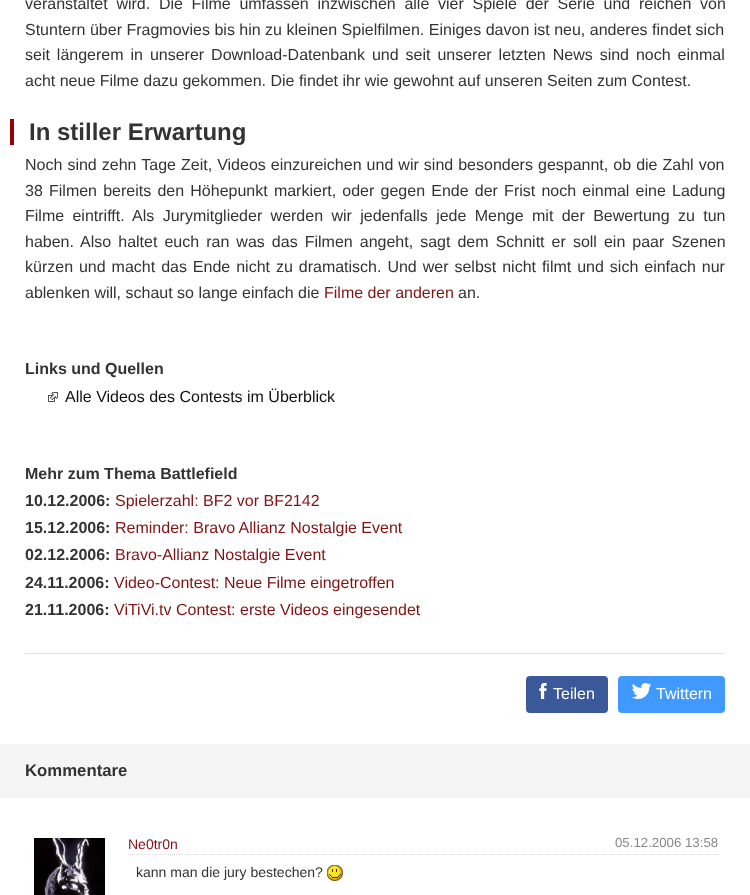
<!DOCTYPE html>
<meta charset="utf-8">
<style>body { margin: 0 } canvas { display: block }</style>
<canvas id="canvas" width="750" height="895"></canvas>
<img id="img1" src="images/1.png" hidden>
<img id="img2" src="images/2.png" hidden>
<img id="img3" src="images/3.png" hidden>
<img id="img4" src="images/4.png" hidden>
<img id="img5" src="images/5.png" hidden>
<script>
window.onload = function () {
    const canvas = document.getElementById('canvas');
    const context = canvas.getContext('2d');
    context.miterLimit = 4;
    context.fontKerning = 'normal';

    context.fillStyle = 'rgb(255, 255, 255)';
    context.fillRect(0, 0, 750, 895);
    context.fillStyle = 'rgb(153, 0, 0)';
    context.fillRect(10, 119, 4, 26);
    context.drawImage(document.getElementById('img1'), 48, 392, 10, 10);
    context.fillStyle = 'rgb(222, 222, 222)';
    context.fillRect(25, 653, 700, 1);
    context.fillStyle = 'rgb(59, 89, 152)';
    context.beginPath();
    context.roundRect(526, 676, 82, 37, 4);
    context.fill();
    context.drawImage(document.getElementById('img2'), 539, 683, 8, 16);
    context.fillStyle = 'rgb(64, 153, 255)';
    context.beginPath();
    context.roundRect(618, 676, 107, 37, 4);
    context.fill();
    context.drawImage(document.getElementById('img3'), 631, 683, 21, 16);
    context.fillStyle = 'rgb(245, 245, 245)';
    context.fillRect(0, 744, 750, 54);
    context.drawImage(document.getElementById('img4'), 34, 838, 71, 57);
    context.beginPath();
    context.moveTo(128, 854.5);
    context.lineTo(719, 854.5);
    context.strokeStyle = 'rgb(221, 221, 221)';
    context.setLineDash([1, 1]);
    context.stroke();
    context.drawImage(document.getElementById('img5'), 327, 865, 16, 16);
    context.wordSpacing = '4.25px';
    context.font = '16px Liberation Sans';
    context.fillStyle = 'rgb(51, 51, 51)';
    context.fillText('veranstaltet wird. Die Filme umfassen inzwischen alle vier Spiele der Serie und reichen von', 25, 9);
    context.wordSpacing = '0px';
    context.fillText('Stuntern über Fragmovies bis hin zu kleinen Spielfilmen. Einiges davon ist neu, anderes findet sich', 25, 35);
    context.wordSpacing = '2.5px';
    context.fillText('seit längerem in unserer Download-Datenbank und seit unserer letzten News sind noch einmal', 25, 60);
    context.wordSpacing = '0px';
    context.fillText('acht neue Filme dazu gekommen. Die findet ihr wie gewohnt auf unseren Seiten zum Contest.', 25, 86);
    context.font = 'bold 24px Liberation Sans';
    context.fillText('In stiller Erwartung', 29, 140);
    context.wordSpacing = '0.6px';
    context.font = '16px Liberation Sans';
    context.fillText('Noch sind zehn Tage Zeit, Videos einzureichen und wir sind besonders gespannt, ob die Zahl von', 25, 170);
    context.wordSpacing = '1.75px';
    context.fillText('38 Filmen bereits den Höhepunkt markiert, oder gegen Ende der Frist noch einmal eine Ladung', 25, 196);
    context.wordSpacing = '3.9px';
    context.fillText('Filme eintrifft. Als Jurymitglieder werden wir jedenfalls jede Menge mit der Bewertung zu tun', 25, 221);
    context.wordSpacing = '2.6px';
    context.fillText('haben. Also haltet euch ran was das Filmen angeht, sagt dem Schnitt er soll ein paar Szenen', 25, 247);
    context.wordSpacing = '1.5px';
    context.fillText('kürzen und macht das Ende nicht zu dramatisch. Und wer selbst nicht filmt und sich einfach nur', 25, 272);
    context.wordSpacing = '0px';
    context.fillText('ablenken will, schaut so lange einfach die', 25, 298);
    context.fillStyle = 'rgb(131, 19, 19)';
    context.fillText('Filme der anderen', 324, 298);
    context.fillStyle = 'rgb(51, 51, 51)';
    context.fillText('an.', 458, 298);
    context.font = 'bold 16px Liberation Sans';
    context.fillText('Links und Quellen', 25, 374);
    context.font = '16px Liberation Sans';
    context.fillStyle = 'rgb(17, 17, 17)';
    context.fillText('Alle Videos des Contests im Überblick', 65, 402);
    context.font = 'bold 16px Liberation Sans';
    context.fillStyle = 'rgb(51, 51, 51)';
    context.fillText('Mehr zum Thema Battlefield', 25, 479);
    context.fillText('10.12.2006:', 25, 506);
    context.font = '16px Liberation Sans';
    context.fillStyle = 'rgb(131, 19, 19)';
    context.fillText('Spielerzahl: BF2 vor BF2142', 115, 506);
    context.font = 'bold 16px Liberation Sans';
    context.fillStyle = 'rgb(51, 51, 51)';
    context.fillText('15.12.2006:', 25, 533);
    context.font = '16px Liberation Sans';
    context.fillStyle = 'rgb(131, 19, 19)';
    context.fillText('Reminder: Bravo Allianz Nostalgie Event', 115, 533);
    context.font = 'bold 16px Liberation Sans';
    context.fillStyle = 'rgb(51, 51, 51)';
    context.fillText('02.12.2006:', 25, 560);
    context.font = '16px Liberation Sans';
    context.fillStyle = 'rgb(131, 19, 19)';
    context.fillText('Bravo-Allianz Nostalgie Event', 115, 560);
    context.font = 'bold 16px Liberation Sans';
    context.fillStyle = 'rgb(51, 51, 51)';
    context.fillText('24.11.2006:', 25, 588);
    context.font = '16px Liberation Sans';
    context.fillStyle = 'rgb(131, 19, 19)';
    context.fillText('Video-Contest: Neue Filme eingetroffen', 114, 588);
    context.font = 'bold 16px Liberation Sans';
    context.fillStyle = 'rgb(51, 51, 51)';
    context.fillText('21.11.2006:', 25, 615);
    context.font = '16px Liberation Sans';
    context.fillStyle = 'rgb(131, 19, 19)';
    context.fillText('ViTiVi.tv Contest: erste Videos eingesendet', 114, 615);
    context.fillStyle = 'rgb(255, 255, 255)';
    context.fillText('Teilen', 553, 699);
    context.fillText('Twittern', 656, 699);
    context.font = 'bold 16.75px Liberation Sans';
    context.fillStyle = 'rgb(51, 51, 51)';
    context.fillText('Kommentare', 25, 776);
    context.font = '14px Liberation Sans';
    context.fillStyle = 'rgb(131, 19, 19)';
    context.fillText('Ne0tr0n', 128, 849);
    context.font = '13.25px Liberation Sans';
    context.fillStyle = 'rgb(136, 136, 136)';
    context.fillText('05.12.2006 13:58', 615, 847);
    context.font = '14px Liberation Sans';
    context.fillStyle = 'rgb(51, 51, 51)';
    context.fillText('kann man die jury bestechen?', 136, 877);
};
</script>
